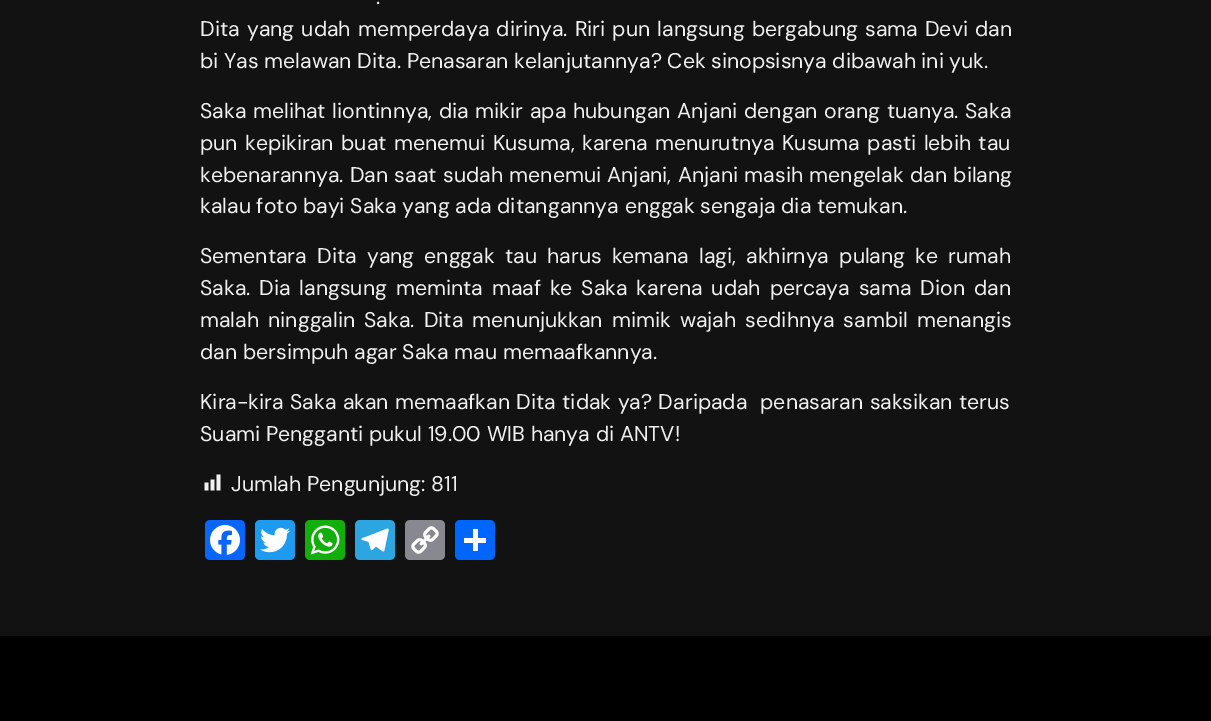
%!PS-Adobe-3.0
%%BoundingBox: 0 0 1211 721
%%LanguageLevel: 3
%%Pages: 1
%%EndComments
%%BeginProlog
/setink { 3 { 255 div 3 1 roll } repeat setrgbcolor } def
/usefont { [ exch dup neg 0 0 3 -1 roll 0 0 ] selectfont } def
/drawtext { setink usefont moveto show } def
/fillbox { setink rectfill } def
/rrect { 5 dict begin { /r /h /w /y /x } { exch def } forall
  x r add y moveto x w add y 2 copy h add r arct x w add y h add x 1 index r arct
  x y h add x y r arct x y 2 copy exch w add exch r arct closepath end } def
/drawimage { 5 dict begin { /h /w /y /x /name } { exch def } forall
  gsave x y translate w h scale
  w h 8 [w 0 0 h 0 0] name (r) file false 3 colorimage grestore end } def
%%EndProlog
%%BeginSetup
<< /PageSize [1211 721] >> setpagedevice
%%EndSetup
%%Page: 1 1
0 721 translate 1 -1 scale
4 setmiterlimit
0 0 1211 721 19 18 18 fillbox
/DMSans-Regular 21.25 usefont
240 240 240 setink
376 4 moveto 2 0 32 (.) widthshow
200 36 moveto 1.5 0 32 (Dita yang udah memperdaya dirinya. Riri pun langsung bergabung sama Devi dan) widthshow
(bi Yas melawan Dita. Penasaran kelanjutannya? Cek sinopsisnya dibawah ini yuk.) 200 68 /DMSans-Regular 21.25 240 240 240 drawtext
200 118 moveto 1 0 32 (Saka melihat liontinnya, dia mikir apa hubungan Anjani dengan orang tuanya. Saka) widthshow
200 150 moveto 1.75 0 32 (pun kepikiran buat menemui Kusuma, karena menurutnya Kusuma pasti lebih tau) widthshow
200 182 moveto 0.75 0 32 (kebenarannya. Dan saat sudah menemui Anjani, Anjani masih mengelak dan bilang) widthshow
(kalau foto bayi Saka yang ada ditangannya enggak sengaja dia temukan.) 200 213 /DMSans-Regular 21.25 240 240 240 drawtext
200 263 moveto 4.5 0 32 (Sementara Dita yang enggak tau harus kemana lagi, akhirnya pulang ke rumah) widthshow
200 295 moveto 3.25 0 32 (Saka. Dia langsung meminta maaf ke Saka karena udah percaya sama Dion dan) widthshow
200 327 moveto 3.5 0 32 (malah ninggalin Saka. Dita menunjukkan mimik wajah sedihnya sambil menangis) widthshow
(dan bersimpuh agar Saka mau memaafkannya.) 200 359 /DMSans-Regular 21.25 240 240 240 drawtext
200 409 moveto 0.75 0 32 (Kira-kira Saka akan memaafkan Dita tidak ya? Daripada  penasaran saksikan terus) widthshow
(Suami Pengganti pukul 19.00 WIB hanya di ANTV!) 200 441 /DMSans-Regular 21.25 240 240 240 drawtext
(assets/img1.rgb) 204 474 17 17 drawimage
(Jumlah Pengunjung: 811) 231 491 /DMSans-Regular 21.25 240 240 240 drawtext
8 102 255 setink
205 520 40 40 5 rrect fill
(assets/img2.rgb) 210 525 30 30 drawimage
29 155 240 setink
255 520 40 40 5 rrect fill
(assets/img3.rgb) 260 527 30 26 drawimage
18 175 10 setink
305 520 40 40 5 rrect fill
(assets/img4.rgb) 310 525 30 30 drawimage
44 165 224 setink
355 520 40 40 5 rrect fill
(assets/img5.rgb) 361 528 28 24 drawimage
136 137 144 setink
405 520 40 40 5 rrect fill
(assets/img6.rgb) 411 526 28 28 drawimage
1 102 255 setink
455 520 40 40 5 rrect fill
473 529 5 22 255 255 255 fillbox
464 538 22 5 255 255 255 fillbox
0 636 1211 85 0 0 0 fillbox
showpage
%%EOF
